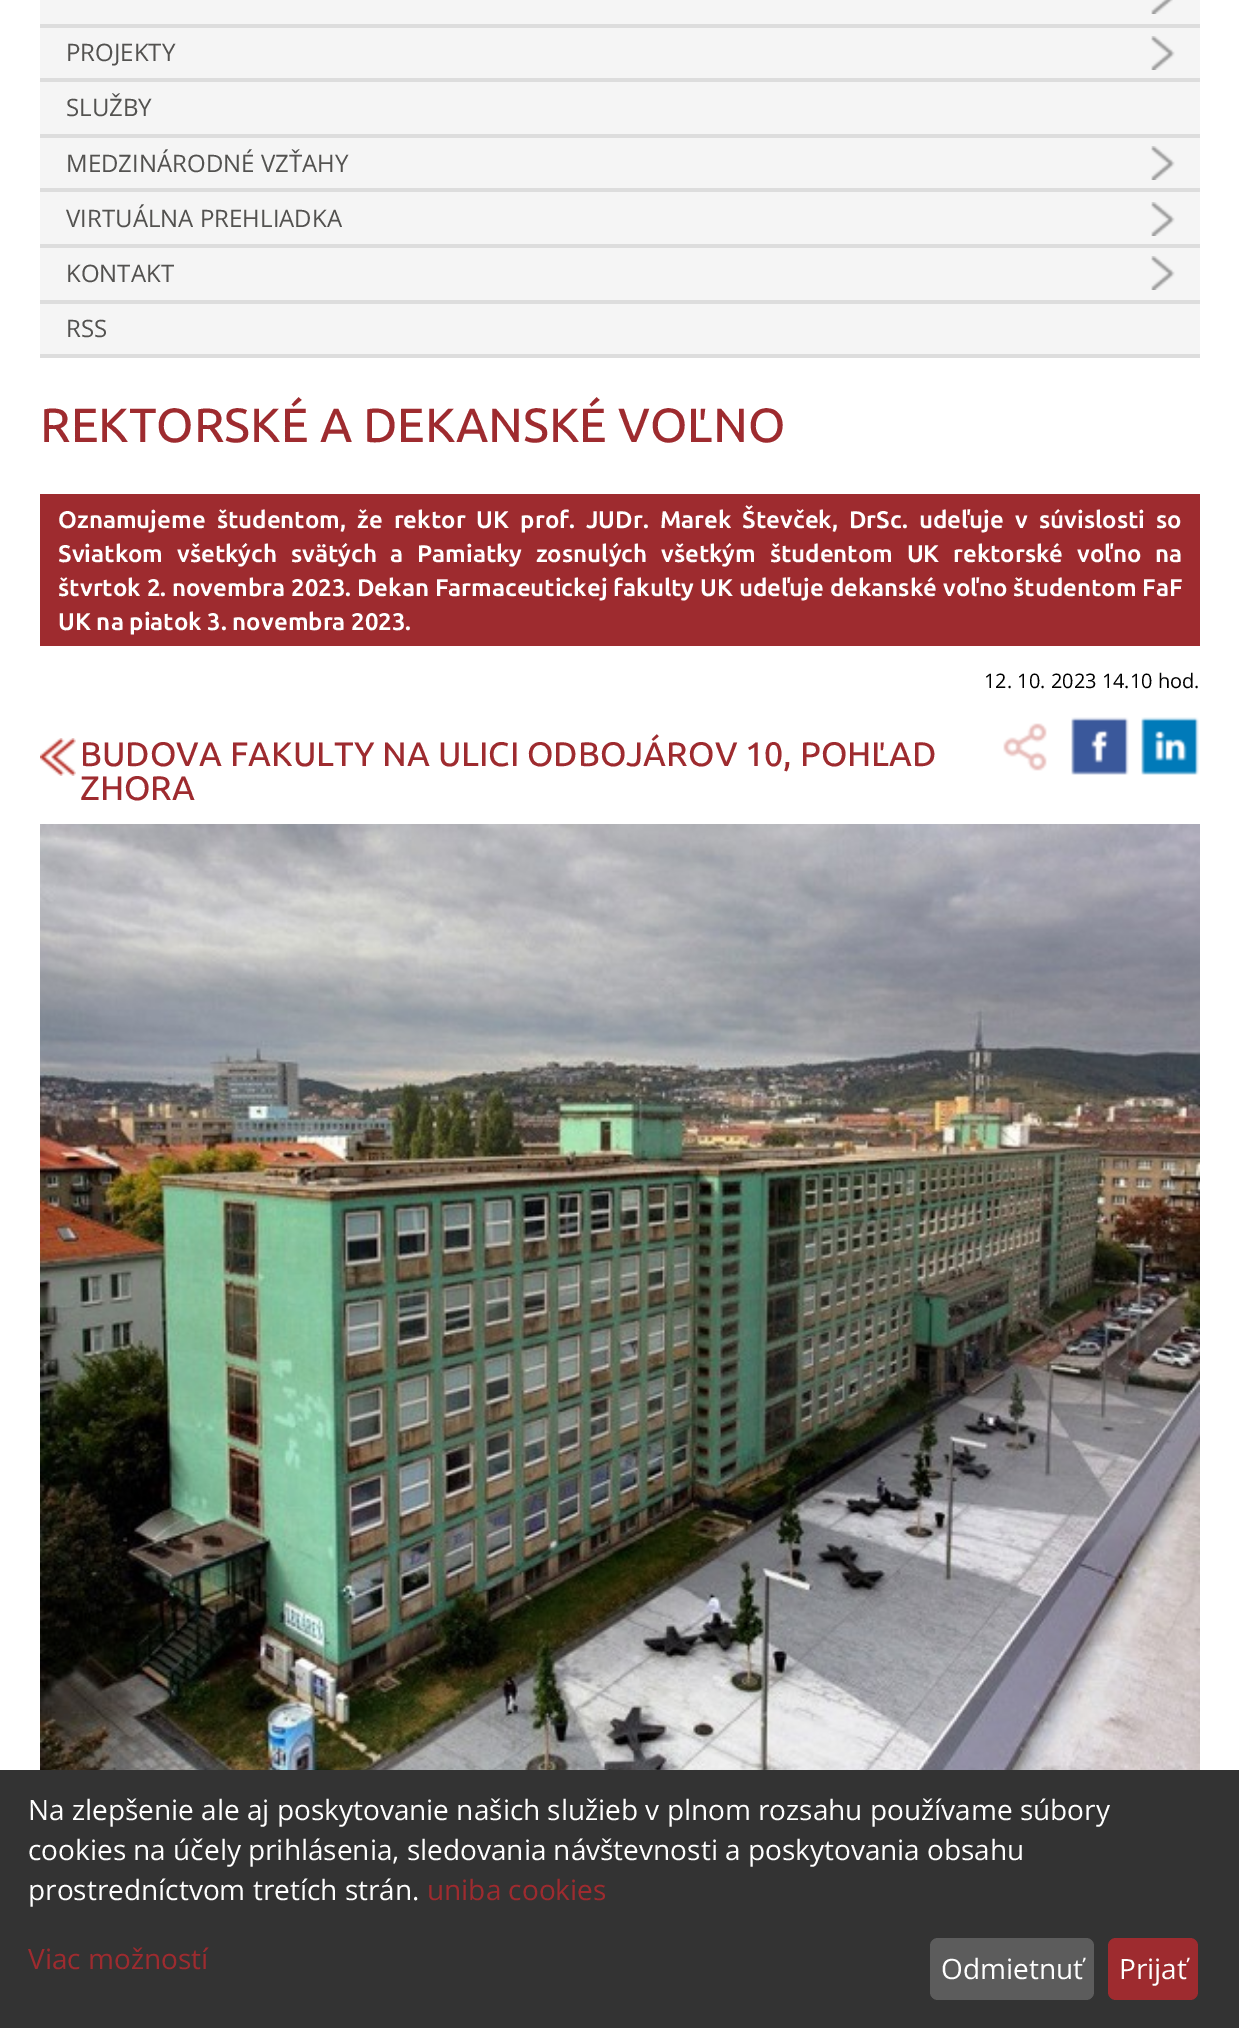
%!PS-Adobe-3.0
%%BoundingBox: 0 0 1239 2028
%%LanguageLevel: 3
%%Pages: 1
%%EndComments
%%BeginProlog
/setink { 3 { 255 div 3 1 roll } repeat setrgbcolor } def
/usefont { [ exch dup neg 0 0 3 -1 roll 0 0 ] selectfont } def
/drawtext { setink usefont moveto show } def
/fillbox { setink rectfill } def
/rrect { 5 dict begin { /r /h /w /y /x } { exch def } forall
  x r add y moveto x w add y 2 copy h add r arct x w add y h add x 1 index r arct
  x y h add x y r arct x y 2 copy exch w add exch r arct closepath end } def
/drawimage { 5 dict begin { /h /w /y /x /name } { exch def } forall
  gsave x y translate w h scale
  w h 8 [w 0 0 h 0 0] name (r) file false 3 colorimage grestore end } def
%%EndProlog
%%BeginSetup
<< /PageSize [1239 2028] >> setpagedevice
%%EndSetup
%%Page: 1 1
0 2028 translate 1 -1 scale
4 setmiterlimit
0 0 1239 2028 255 255 255 fillbox
40 0 1160 354 245 245 245 fillbox
40 24 1160 4 221 221 221 fillbox
(assets/img1.rgb) 1151 0 22 14 drawimage
40 78 1160 4 221 221 221 fillbox
(assets/img2.rgb) 1151 36 24 34 drawimage
(PROJEKTY) 66 61 /OpenSans-Regular 24 83 82 80 drawtext
40 134 1160 4 221 221 221 fillbox
(SLUŽBY) 66 116 /OpenSans-Regular 24 83 82 80 drawtext
40 188 1160 4 221 221 221 fillbox
(assets/img2.rgb) 1151 146 24 34 drawimage
(MEDZINÁRODNÉ VZŤAHY) 66 172 /OpenSans-Regular 24 83 82 80 drawtext
40 244 1160 4 221 221 221 fillbox
(assets/img2.rgb) 1151 202 24 34 drawimage
(VIRTUÁLNA PREHLIADKA) 66 227 /OpenSans-Regular 24 83 82 80 drawtext
40 300 1160 4 221 221 221 fillbox
(assets/img2.rgb) 1151 256 24 34 drawimage
(KONTAKT) 66 282 /OpenSans-Regular 24 83 82 80 drawtext
40 354 1160 4 221 221 221 fillbox
(RSS) 66 337 /OpenSans-Regular 24 83 82 80 drawtext
(REKTORSKÉ A DEKANSKÉ VOĽNO) 40 442 /Ubuntu-Medium 48 158 43 47 drawtext
40 494 1160 152 158 43 47 fillbox
/Ubuntu-Bold 24 usefont
255 255 255 setink
58 528 moveto 5.4 0 32 (Oznamujeme študentom, že rektor UK prof. JUDr. Marek Števček, DrSc. udeľuje v súvislosti so) widthshow
58 562 moveto 7.9 0 32 (Sviatkom všetkých svätých a Pamiatky zosnulých všetkým študentom UK rektorské voľno na) widthshow
58 596 moveto 0.25 0 32 (štvrtok 2. novembra 2023. Dekan Farmaceutickej fakulty UK udeľuje dekanské voľno študentom FaF) widthshow
(UK na piatok 3. novembra 2023.) 58 630 /Ubuntu-Bold 24 255 255 255 drawtext
(12. 10. 2023 14.10 hod.) 984 688 /OpenSans-Regular 20 0 0 0 drawtext
(assets/img3.rgb) 40 738 36 38 drawimage
(assets/img4.rgb) 1003 723 44 48 drawimage
(assets/img5.rgb) 1071 717 58 58 drawimage
(assets/img6.rgb) 1141 717 58 58 drawimage
(BUDOVA FAKULTY NA ULICI ODBOJÁROV 10, POHĽAD) 80 766 /Ubuntu-Medium 34 158 43 47 drawtext
(ZHORA) 80 800 /Ubuntu-Medium 34 158 43 47 drawtext
(assets/img7.rgb) 40 824 1160 946 drawimage
0 1770 1239 258 51 51 51 fillbox
(Na zlepšenie ale aj poskytovanie našich služieb v plnom rozsahu používame súbory) 28 1820 /OpenSans-Regular 28 255 255 255 drawtext
(cookies na účely prihlásenia, sledovania návštevnosti a poskytovania obsahu) 28 1860 /OpenSans-Regular 28 255 255 255 drawtext
(prostredníctvom tretích strán.) 28 1900 /OpenSans-Regular 28 255 255 255 drawtext
(uniba cookies) 427 1900 /OpenSans-Regular 28 158 43 47 drawtext
(Viac možností) 28 1969 /OpenSans-Regular 28 158 43 47 drawtext
92 92 92 setink
930 1938 164 62 8 rrect fill
(Odmietnuť) 941 1979 /OpenSans-Regular 28 255 255 255 drawtext
158 43 47 setink
1108 1938 90 62 8 rrect fill
(Prijať) 1119 1979 /OpenSans-Regular 28 255 255 255 drawtext
showpage
%%EOF
